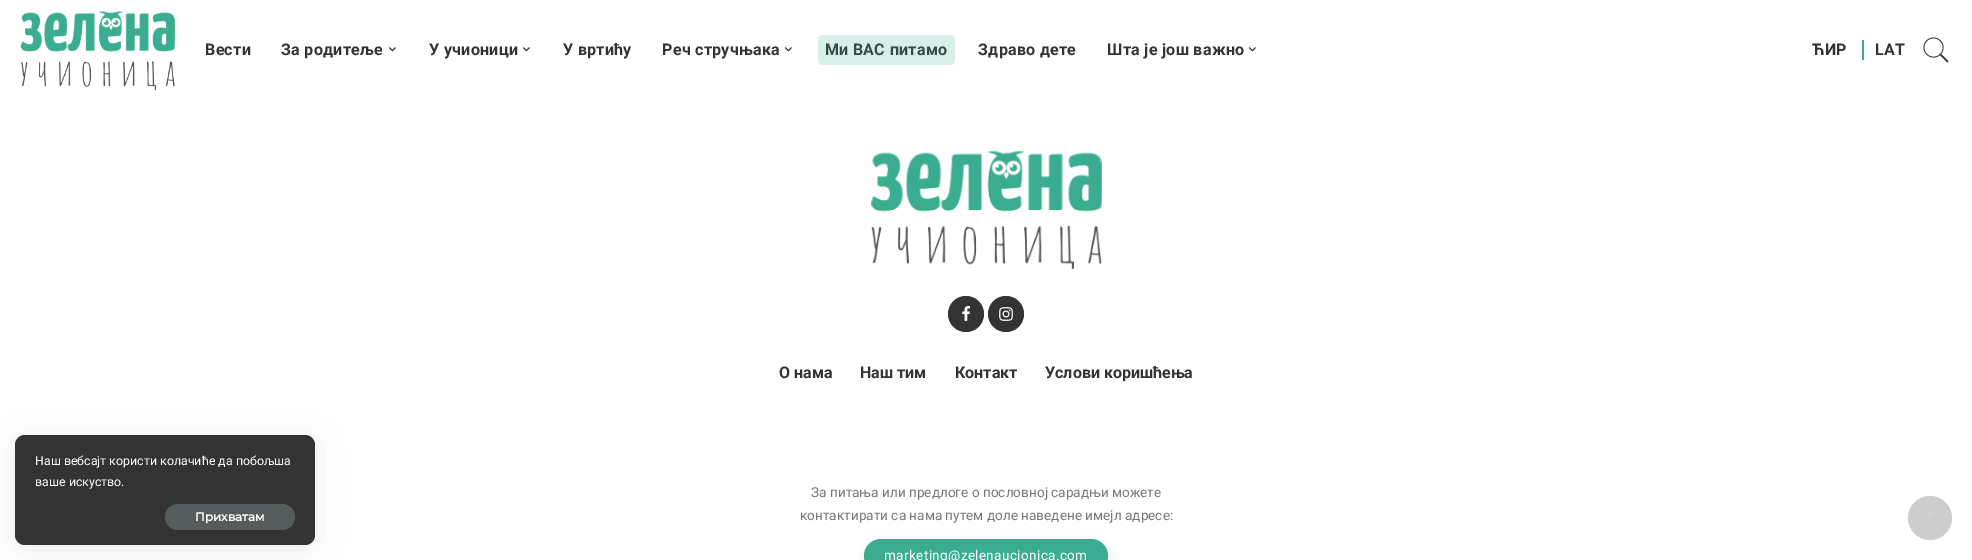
%!PS-Adobe-3.0
%%BoundingBox: 0 0 1972 560
%%LanguageLevel: 3
%%Pages: 1
%%EndComments
%%BeginProlog
/setink { 3 { 255 div 3 1 roll } repeat setrgbcolor } def
/usefont { [ exch dup neg 0 0 3 -1 roll 0 0 ] selectfont } def
/drawtext { setink usefont moveto show } def
/fillbox { setink rectfill } def
/setalpha { dup .setfillconstantalpha .setstrokeconstantalpha } def
/disc { newpath 0 360 arc closepath } def
/rrect { 5 dict begin { /r /h /w /y /x } { exch def } forall
  x r add y moveto x w add y 2 copy h add r arct x w add y h add x 1 index r arct
  x y h add x y r arct x y 2 copy exch w add exch r arct closepath end } def
/softshadow { 12 dict begin { /a /b /q /h /w /y /x } { exch def } forall gsave /was 0 def
  9 -2 -9 { dup b mul 4 div /e exch def 1 sub .425 mul 2.718 exch exp 1 add a .99 .min exch div /now exch def
    1 1 now sub 1 was sub div sub setalpha /was now def
    w h .min e 2 mul add 0 gt { x e sub y e sub w e 2 mul add h e 2 mul add
      q e add b .6 mul add w h .min 2 div e add .min 0 .max rrect fill } if } for grestore end } def
/drawimage { 5 dict begin { /h /w /y /x /name } { exch def } forall
  gsave x y translate w h scale
  w h 8 [w 0 0 h 0 0] name (r) file false 3 colorimage grestore end } def
%%EndProlog
%%BeginSetup
<< /PageSize [1972 560] /PageUsesTransparency true >> setpagedevice
%%EndSetup
%%Page: 1 1
0 .pushpdf14devicefilter
0 560 translate 1 -1 scale
4 setmiterlimit
0 0 1972 560 255 255 255 fillbox
0 0 0 setink
15 439 300 110 10 15 0.07 softshadow
51 51 51 setink
15 435 300 110 10 rrect fill
(Наш вебсајт користи колачиће да побољша) 35 465 /Roboto-Regular 12.4 255 255 255 drawtext
(ваше искуство.) 35 486 /Roboto-Regular 12.4 255 255 255 drawtext
86 92 92 setink
165 504 130 26 13 rrect fill
(Прихватам) 195 521 /Montserrat-Bold 12 255 255 255 drawtext
(assets/img1.rgb) 20 11 155 79 drawimage
/Roboto-Bold 16 usefont
51 51 51 setink
205 55 moveto 0.3 0 (Вести) ashow
281 55 moveto 0.3 0 (За родитеље) ashow
(assets/img2.rgb) 388 47 8 5 drawimage
429 55 moveto 0.3 0 (У учионици) ashow
(assets/img2.rgb) 522 47 8 5 drawimage
563 55 moveto 0.3 0 (У вртићу) ashow
662 55 moveto 0.3 0 (Реч стручњака) ashow
(assets/img2.rgb) 784 47 8 5 drawimage
825 55 moveto 0.3 0 (Ми ВАС питамо) ashow
0.2 setalpha
58 172 144 setink
818 35 137 30 5 rrect fill
1 setalpha
51 51 51 setink
978 55 moveto 0.3 0 (Здраво дете) ashow
1107 55 moveto 0.3 0 (Шта је још важно) ashow
(assets/img2.rgb) 1248 47 8 5 drawimage
1812 55 moveto 0.3 0 (ЋИР) ashow
1862 40 2 20 58 172 144 fillbox
51 51 51 setink
1875 55 moveto 0.3 0 (LAT) ashow
(assets/img3.rgb) 1923 37 26 26 drawimage
(assets/img4.rgb) 871 150 231 119 drawimage
966 314 18 disc fill
(assets/img5.rgb) 962 306 8 15 drawimage
1006 314 18 disc fill
(assets/img6.rgb) 999 307 14 14 drawimage
(О нама) 779 378 /Roboto-Bold 16 51 51 51 drawtext
(Наш тим) 860 378 /Roboto-Bold 16 51 51 51 drawtext
(Контакт) 955 378 /Roboto-Bold 16 51 51 51 drawtext
(Услови коришћења) 1045 378 /Roboto-Bold 16 51 51 51 drawtext
(За питања или предлоге о пословној сарадњи можете) 811 497 /Roboto-Regular 13.6 119 119 119 drawtext
(контактирати са нама путем доле наведене имејл адресе:) 800 520 /Roboto-Regular 13.6 119 119 119 drawtext
0 0 0 setink
865 544 244 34 17 5 0.1 softshadow
58 172 144 setink
864 539 244 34 17 rrect fill
255 255 255 setink
884 560 moveto 0.35 0 (marketing@zelenaucionica.com) ashow
205 205 205 setink
1930 518 22 disc fill
(assets/img7.rgb) 1925 511 9 13 drawimage
.poppdf14devicefilter showpage
%%EOF
